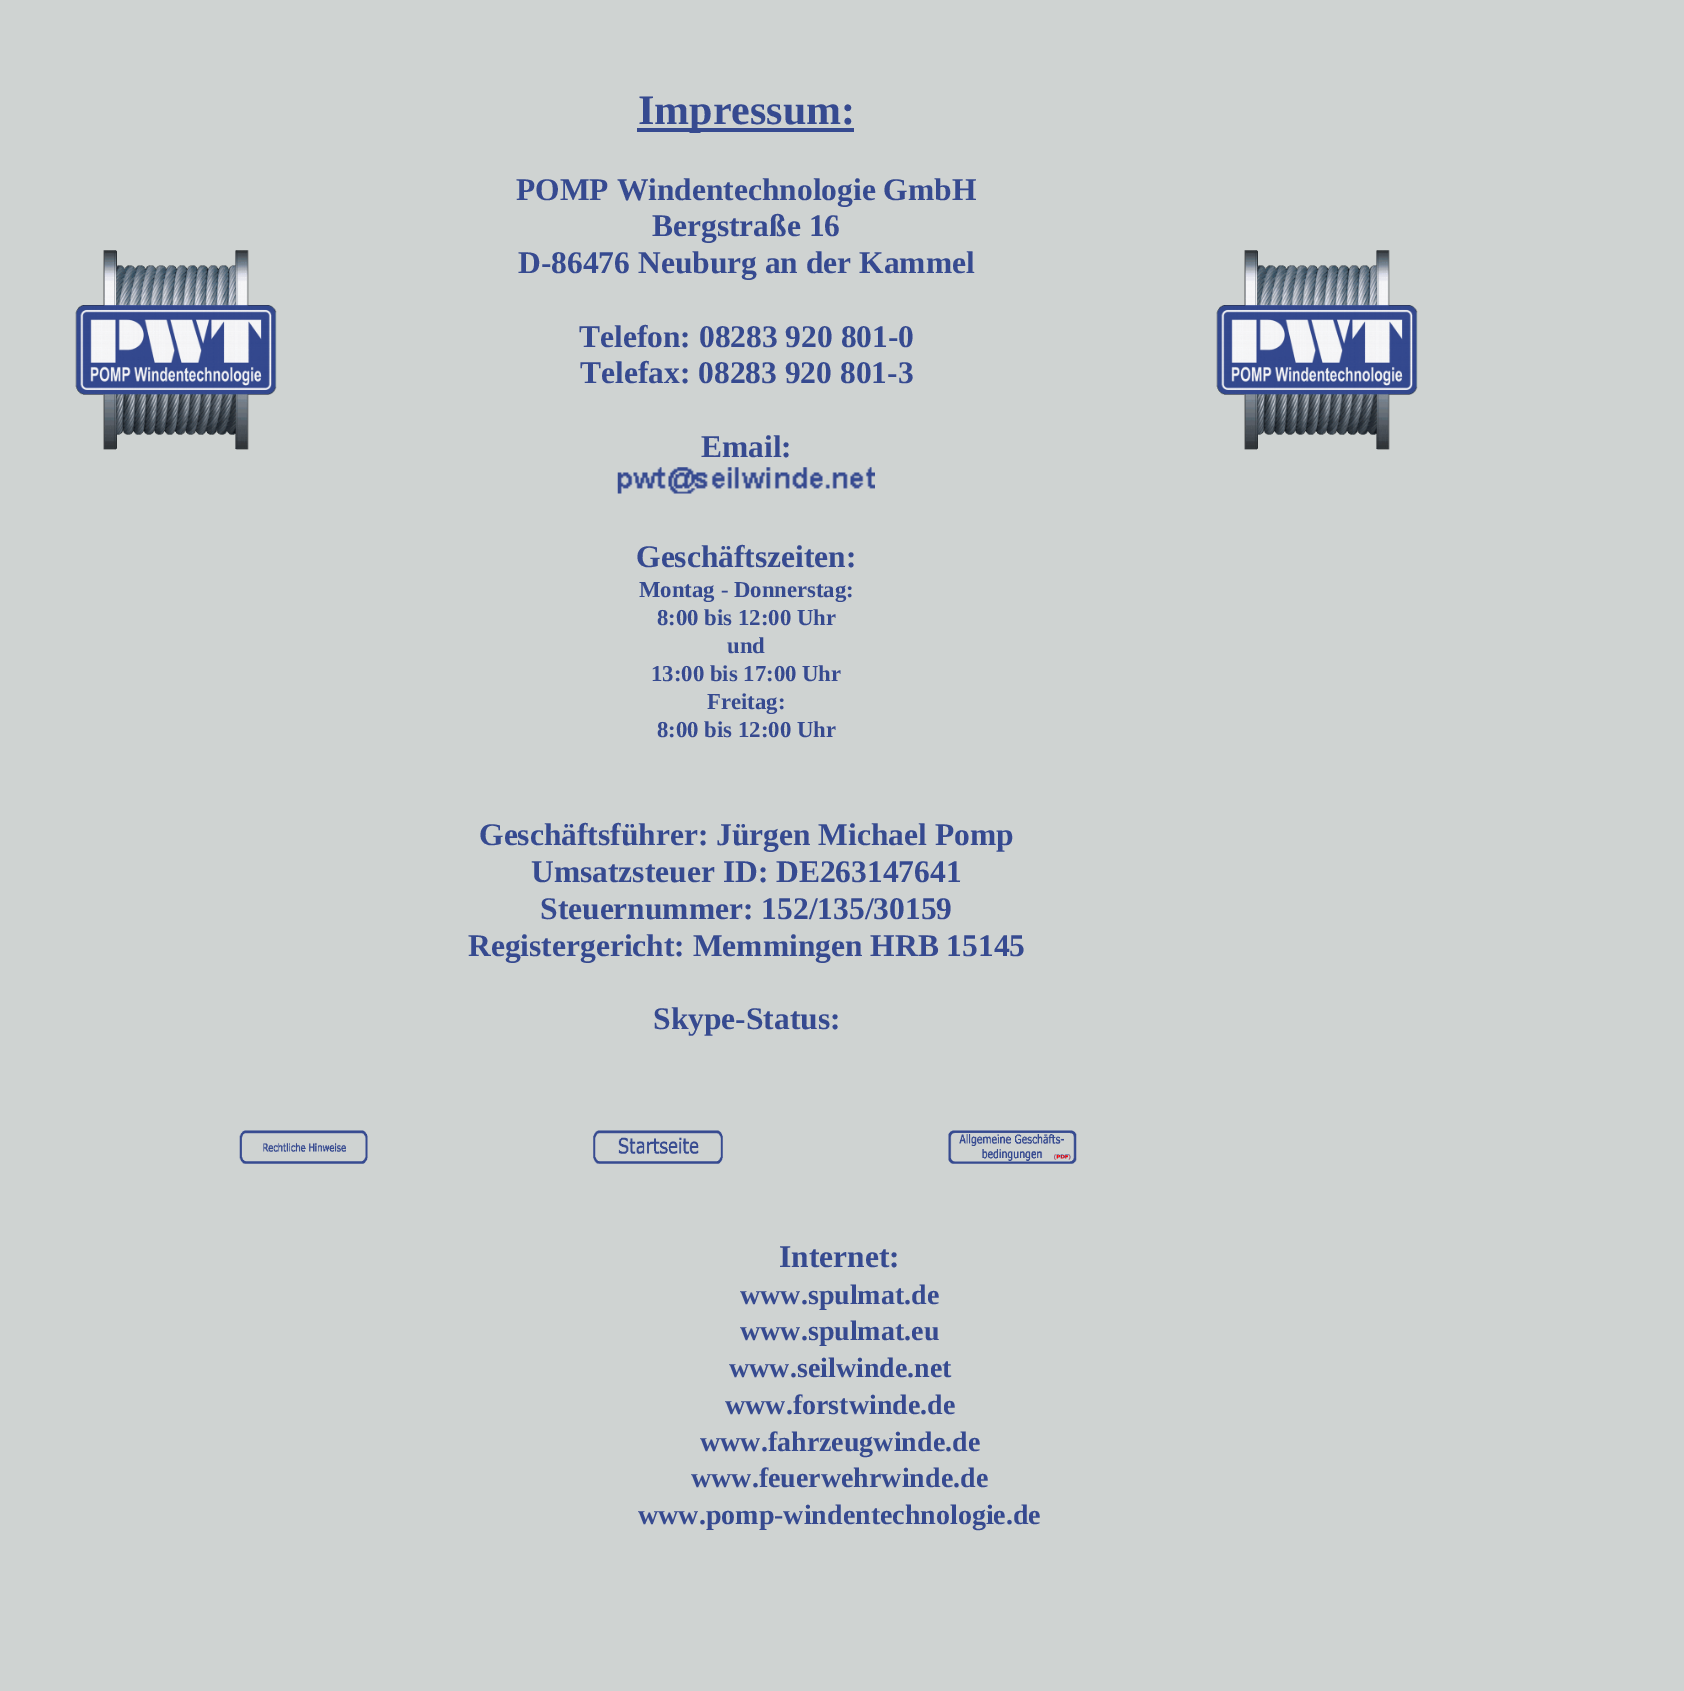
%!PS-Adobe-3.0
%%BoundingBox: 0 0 1684 1691
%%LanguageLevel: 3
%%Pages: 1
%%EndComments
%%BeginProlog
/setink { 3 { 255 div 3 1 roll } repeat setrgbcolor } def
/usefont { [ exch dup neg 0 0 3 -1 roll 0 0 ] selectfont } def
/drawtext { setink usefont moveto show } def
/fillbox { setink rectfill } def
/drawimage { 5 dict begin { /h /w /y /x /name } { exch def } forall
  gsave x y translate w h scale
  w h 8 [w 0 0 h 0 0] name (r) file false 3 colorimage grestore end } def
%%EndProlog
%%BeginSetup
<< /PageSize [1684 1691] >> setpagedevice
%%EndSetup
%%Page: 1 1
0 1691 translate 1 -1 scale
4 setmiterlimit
0 0 1684 1691 207 211 210 fillbox
(assets/img1.rgb) 75 250 202 200 drawimage
637 128 217 4 54 74 144 fillbox
(Impressum:) 638 124 /LiberationSerif-Bold 42 54 74 144 drawtext
(POMP Windentechnologie GmbH) 516 200 /LiberationSerif-Bold 31.5 54 74 144 drawtext
(Bergstraße 16) 652 236 /LiberationSerif-Bold 31.5 54 74 144 drawtext
(D-86476 Neuburg an der Kammel) 518 273 /LiberationSerif-Bold 31.5 54 74 144 drawtext
(Telefon: 08283 920 801-0) 579 347 /LiberationSerif-Bold 31.5 54 74 144 drawtext
(Telefax: 08283 920 801-3) 580 383 /LiberationSerif-Bold 31.5 54 74 144 drawtext
(Email:) 701 457 /LiberationSerif-Bold 31.5 54 74 144 drawtext
(assets/img2.rgb) 617 467 258 27 drawimage
(Geschäftszeiten:) 636 567 /LiberationSerif-Bold 31.5 54 74 144 drawtext
(Montag - Donnerstag:) 639 597 /LiberationSerif-Bold 22.75 54 74 144 drawtext
(8:00 bis 12:00 Uhr) 657 625 /LiberationSerif-Bold 22.75 54 74 144 drawtext
(und) 727 653 /LiberationSerif-Bold 22.75 54 74 144 drawtext
(13:00 bis 17:00 Uhr) 651 681 /LiberationSerif-Bold 22.75 54 74 144 drawtext
(Freitag:) 707 709 /LiberationSerif-Bold 22.75 54 74 144 drawtext
(8:00 bis 12:00 Uhr) 657 737 /LiberationSerif-Bold 22.75 54 74 144 drawtext
(Geschäftsführer: Jürgen Michael Pomp) 479 845 /LiberationSerif-Bold 31.5 54 74 144 drawtext
(Umsatzsteuer ID: DE263147641) 531 882 /LiberationSerif-Bold 31.5 54 74 144 drawtext
(Steuernummer: 152/135/30159) 540 919 /LiberationSerif-Bold 31.5 54 74 144 drawtext
(Registergericht: Memmingen HRB 15145) 468 956 /LiberationSerif-Bold 31.5 54 74 144 drawtext
(Skype-Status:) 653 1029 /LiberationSerif-Bold 31.5 54 74 144 drawtext
(assets/img1.rgb) 1216 250 202 200 drawimage
(assets/img3.rgb) 239 1130 129 34 drawimage
(assets/img4.rgb) 593 1130 130 34 drawimage
(assets/img5.rgb) 948 1130 129 34 drawimage
(Internet:) 779 1267 /LiberationSerif-Bold 31.5 54 74 144 drawtext
(www.spulmat.de) 740 1304 /LiberationSerif-Bold 28 54 74 144 drawtext
(www.spulmat.eu) 740 1340 /LiberationSerif-Bold 28 54 74 144 drawtext
(www.seilwinde.net) 729 1377 /LiberationSerif-Bold 28 54 74 144 drawtext
(www.forstwinde.de) 725 1414 /LiberationSerif-Bold 28 54 74 144 drawtext
(www.fahrzeugwinde.de) 700 1451 /LiberationSerif-Bold 28 54 74 144 drawtext
(www.feuerwehrwinde.de) 691 1487 /LiberationSerif-Bold 28 54 74 144 drawtext
(www.pomp-windentechnologie.de) 638 1524 /LiberationSerif-Bold 28 54 74 144 drawtext
showpage
%%EOF
